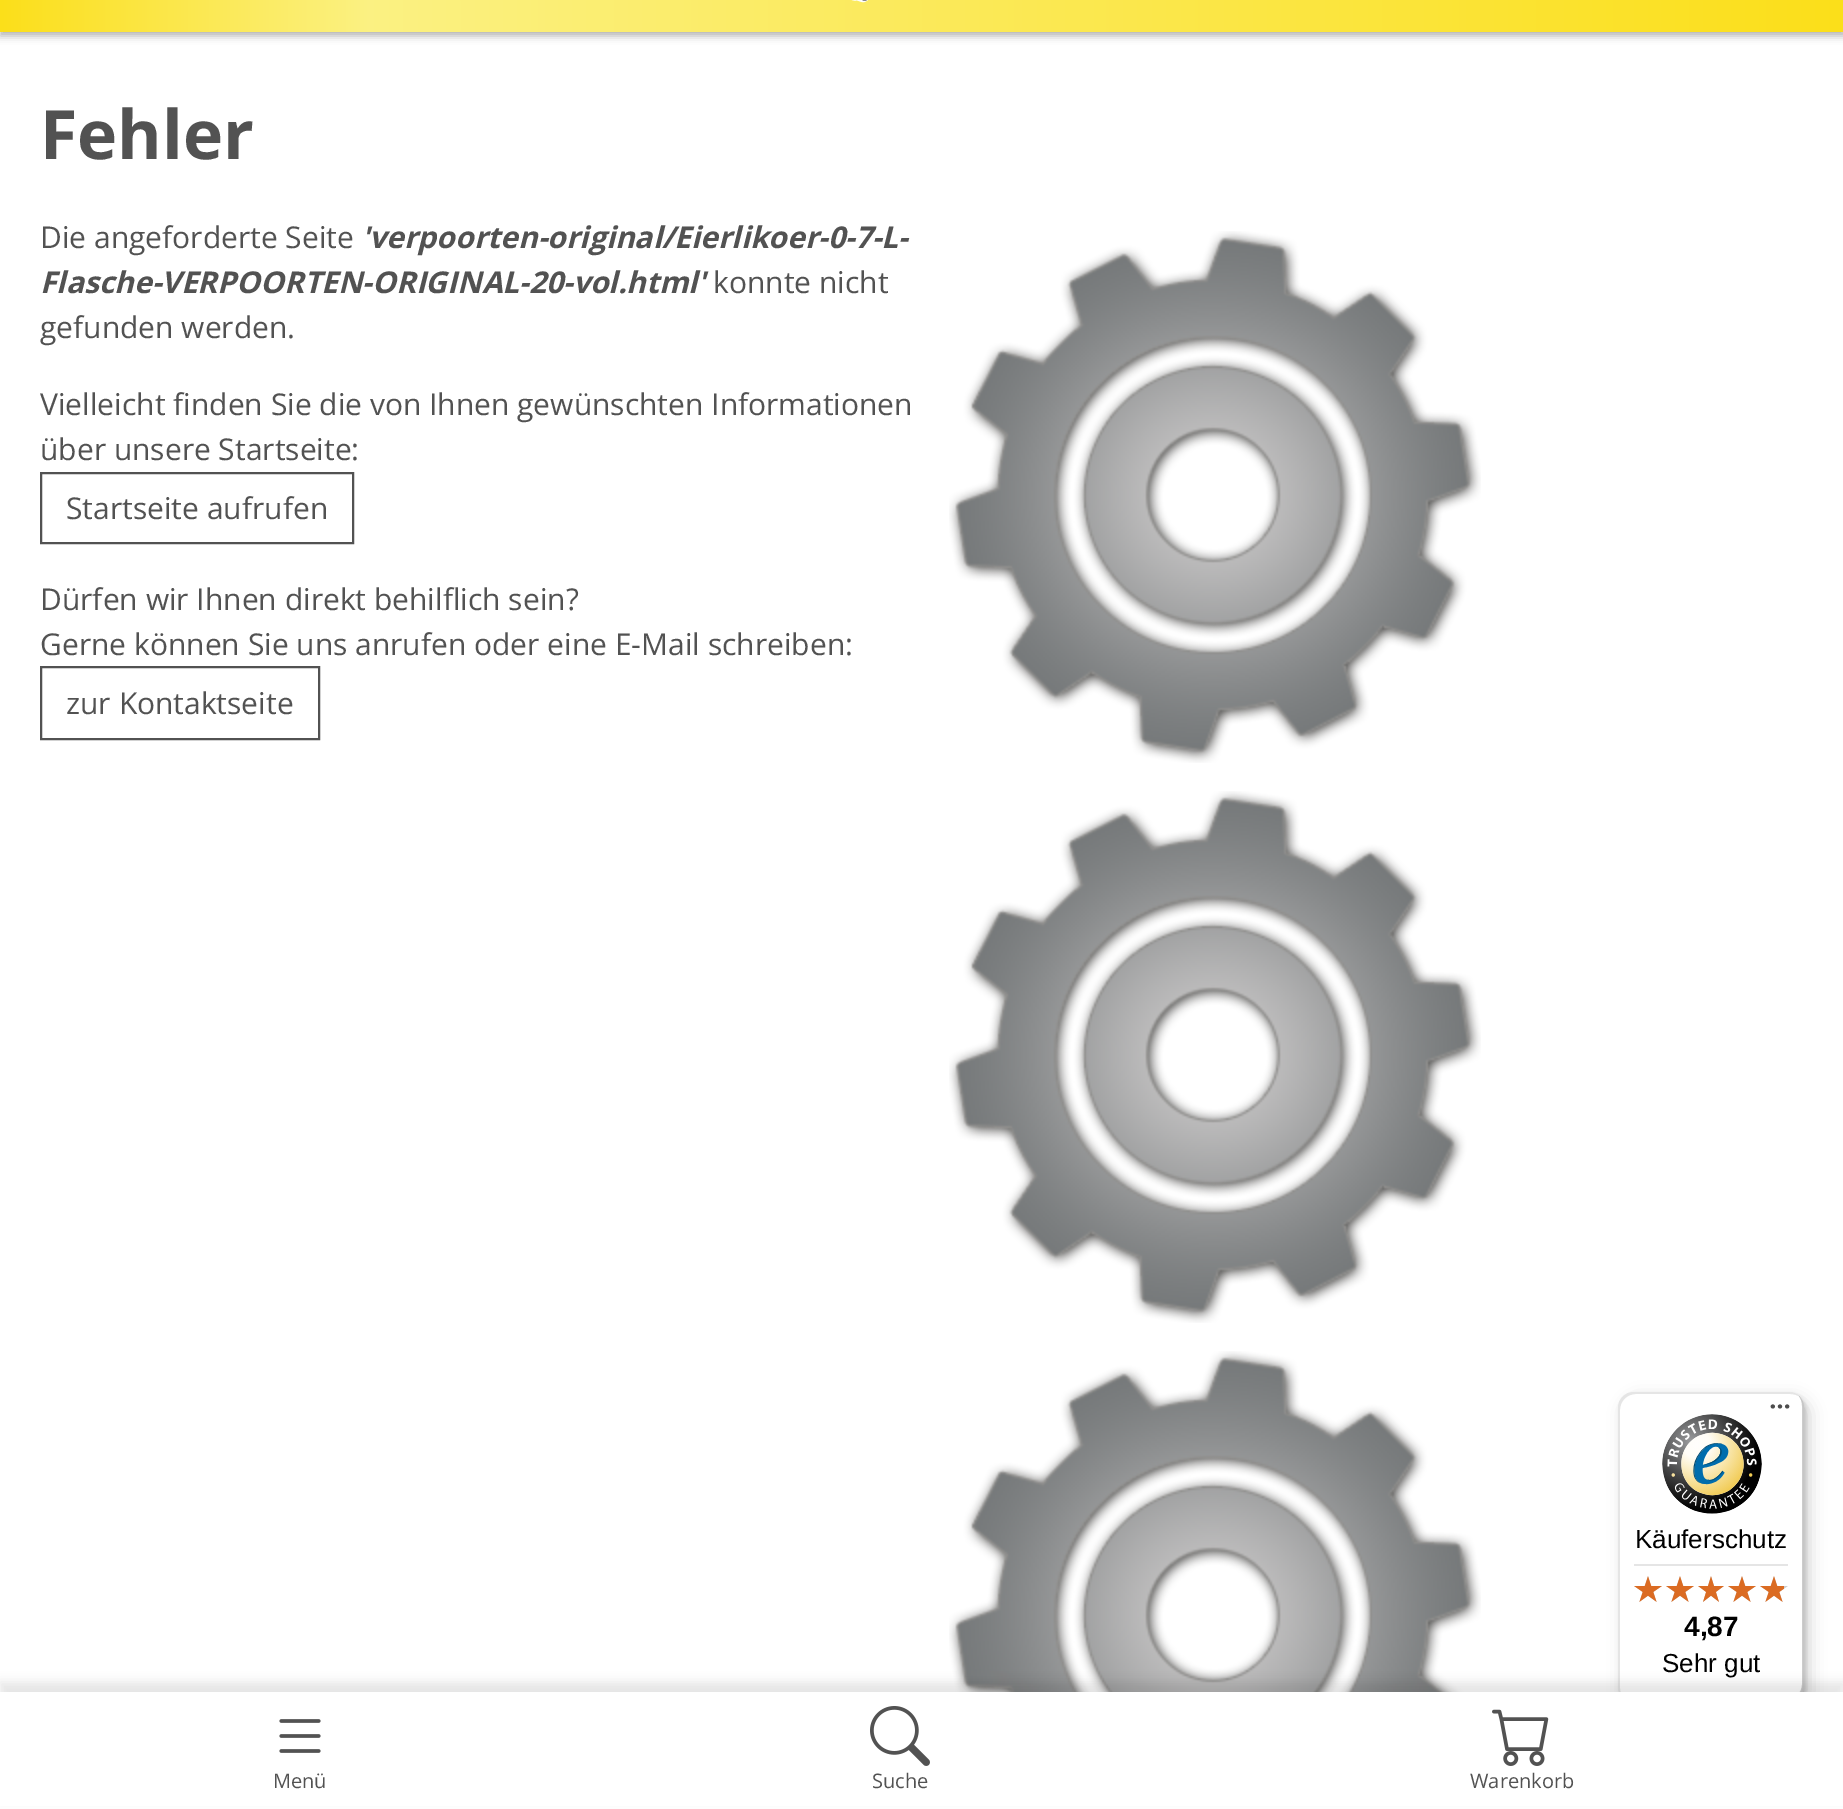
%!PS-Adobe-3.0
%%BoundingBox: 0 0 1843 1809
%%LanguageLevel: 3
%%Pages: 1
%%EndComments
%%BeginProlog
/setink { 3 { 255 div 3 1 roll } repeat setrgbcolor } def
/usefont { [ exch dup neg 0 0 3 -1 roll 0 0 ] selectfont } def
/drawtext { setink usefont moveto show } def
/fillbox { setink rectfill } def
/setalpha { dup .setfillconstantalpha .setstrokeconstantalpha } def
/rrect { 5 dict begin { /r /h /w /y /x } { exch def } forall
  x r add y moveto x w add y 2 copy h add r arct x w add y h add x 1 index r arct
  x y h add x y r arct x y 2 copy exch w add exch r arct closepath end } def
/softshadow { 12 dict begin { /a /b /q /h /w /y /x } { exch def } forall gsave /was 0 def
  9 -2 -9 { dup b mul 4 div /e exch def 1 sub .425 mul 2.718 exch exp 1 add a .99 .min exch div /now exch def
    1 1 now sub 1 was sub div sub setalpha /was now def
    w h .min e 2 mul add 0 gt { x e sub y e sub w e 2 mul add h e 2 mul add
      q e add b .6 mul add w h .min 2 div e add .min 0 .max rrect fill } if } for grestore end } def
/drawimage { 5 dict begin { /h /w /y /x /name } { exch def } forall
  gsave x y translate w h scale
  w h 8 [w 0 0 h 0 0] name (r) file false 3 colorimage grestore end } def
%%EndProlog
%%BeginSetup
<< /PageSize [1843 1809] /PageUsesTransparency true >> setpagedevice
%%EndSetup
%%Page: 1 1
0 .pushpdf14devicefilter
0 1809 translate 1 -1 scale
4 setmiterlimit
0 0 1843 1809 255 255 255 fillbox
(Fehler) 40 159 /OpenSans-Bold 68 82 82 82 drawtext
(Die angeforderte Seite) 40 248 /OpenSans-Regular 30 82 82 82 drawtext
('verpoorten-original/Eierlikoer-0-7-L-) 361 248 /OpenSans-BoldItalic 30 82 82 82 drawtext
(Flasche-VERPOORTEN-ORIGINAL-20-vol.html') 40 293 /OpenSans-BoldItalic 30 82 82 82 drawtext
(konnte nicht) 713 293 /OpenSans-Regular 30 82 82 82 drawtext
(gefunden werden.) 40 338 /OpenSans-Regular 30 82 82 82 drawtext
(Vielleicht finden Sie die von Ihnen gewünschten Informationen) 40 415 /OpenSans-Regular 30 82 82 82 drawtext
(über unsere Startseite:) 40 460 /OpenSans-Regular 30 82 82 82 drawtext
2 setlinewidth
41 473 312 70 rectstroke
(Startseite aufrufen) 66 519 /OpenSans-Regular 30 82 82 82 drawtext
(Dürfen wir Ihnen direkt behilflich sein?) 40 610 /OpenSans-Regular 30 82 82 82 drawtext
(Gerne können Sie uns anrufen oder eine E-Mail schreiben:) 40 655 /OpenSans-Regular 30 82 82 82 drawtext
41 667 278 72 rectstroke
(zur Kontaktseite) 66 714 /OpenSans-Regular 30 82 82 82 drawtext
(assets/img1.rgb) 949 231 532 532 drawimage
(assets/img1.rgb) 949 791 532 532 drawimage
(assets/img2.rgb) 949 1351 532 341 drawimage
0 0 0 setink
1624 1398 186 310 16 8 0.15 softshadow
1620 1394 186 310 16 2 0.15 softshadow
255 255 255 setink
1618 1392 186 310 16 rrect fill
0.1 setalpha
0 0 0 setink
1636 1394 moveto 1790 1394 lineto 1794 1394 1797 1395 1800 1397 curveto 1797 1394 1793 1392 1788 1392 curveto 1634 1392 lineto 1625 1392 1618 1399 1618 1408 curveto 1618 1686 lineto 1618 1691 1620 1695 1623 1698 curveto 1621 1695 1620 1692 1620 1688 curveto 1620 1410 lineto 1620 1401 1627 1394 1636 1394 curveto closepath fill
0.2 setalpha
1622 1697 moveto 1625 1700 1629 1702 1634 1702 curveto 1788 1702 lineto 1797 1702 1804 1695 1804 1686 curveto 1804 1408 lineto 1804 1403 1802 1399 1799 1396 curveto 1801 1399 1802 1402 1802 1406 curveto 1802 1684 lineto 1802 1693 1795 1700 1786 1700 curveto 1632 1700 lineto 1628 1700 1625 1699 1622 1697 curveto closepath fill
50 50 50 setink
1623 1697 moveto 1626 1700 1630 1702 1634 1702 curveto 1788 1702 lineto 1797 1702 1804 1695 1804 1686 curveto 1804 1408 lineto 1804 1404 1802 1400 1799 1397 curveto 1802 1400 1803 1403 1803 1407 curveto 1803 1685 lineto 1803 1694 1796 1701 1787 1701 curveto 1633 1701 lineto 1629 1701 1626 1700 1623 1697 curveto closepath fill
0.3 setalpha
255 255 255 setink
1623 1697 moveto 1626 1700 1630 1702 1634 1702 curveto 1788 1702 lineto 1797 1702 1804 1695 1804 1686 curveto 1804 1408 lineto 1804 1404 1802 1400 1799 1397 curveto 1802 1400 1803 1403 1803 1407 curveto 1803 1685 lineto 1803 1694 1796 1701 1787 1701 curveto 1633 1701 lineto 1629 1701 1626 1700 1623 1697 curveto closepath fill
1 setalpha
(assets/img3.rgb) 1770 1404 20 5 drawimage
(assets/img4.rgb) 1662 1414 100 100 drawimage
(Käuferschutz) 1635 1548 /LiberationSans-Regular 26 0 0 0 drawtext
1634 1564 154 2 229 229 229 fillbox
(assets/img5.rgb) 1634 1576 28 26 drawimage
(assets/img5.rgb) 1666 1576 28 26 drawimage
(assets/img6.rgb) 1698 1576 26 26 drawimage
(assets/img5.rgb) 1728 1576 28 26 drawimage
(assets/img5.rgb) 1760 1576 28 26 drawimage
(assets/img7.rgb) 1634 1576 28 26 drawimage
(assets/img7.rgb) 1666 1576 28 26 drawimage
(assets/img8.rgb) 1698 1576 26 26 drawimage
(assets/img7.rgb) 1728 1576 28 26 drawimage
(assets/img9.rgb) 1760 1576 24 26 drawimage
(4,87) 1684 1636 /LiberationSans-Bold 28 0 0 0 drawtext
(Sehr gut) 1662 1672 /LiberationSans-Regular 26 0 0 0 drawtext
0 -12 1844 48 0 4 0.3 softshadow
gsave 0 0 moveto 1843 0 lineto 1843 32 lineto 0 32 lineto closepath clip newpath
<< /ShadingType 2 /ColorSpace /DeviceRGB /Coords [0 -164 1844 -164] /Extend [true true] /Function << /FunctionType 3 /Domain [0 1] /Functions [<< /FunctionType 2 /Domain [0 1] /C0 [0.984 0.875 0.102] /C1 [0.984 0.945 0.51] /N 1 >> << /FunctionType 2 /Domain [0 1] /C0 [0.984 0.945 0.51] /C1 [0.984 0.875 0.102] /N 1 >>] /Bounds [0.2] /Encode [0 1 0 1] >> >> shfill grestore
(assets/img10.rgb) 851 0 17 3 drawimage
0 1682 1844 118 0 5 0.1 softshadow
0 1692 1843 114 255 255 255 fillbox
(assets/img11.rgb) 279 1719 42 34 drawimage
(Menü) 273 1788 /OpenSans-Regular 20 82 82 82 drawtext
(assets/img12.rgb) 870 1706 60 60 drawimage
(Suche) 872 1788 /OpenSans-Regular 20 82 82 82 drawtext
(assets/img13.rgb) 1492 1709 57 57 drawimage
(Warenkorb) 1470 1788 /OpenSans-Regular 20 82 82 82 drawtext
.poppdf14devicefilter showpage
%%EOF
